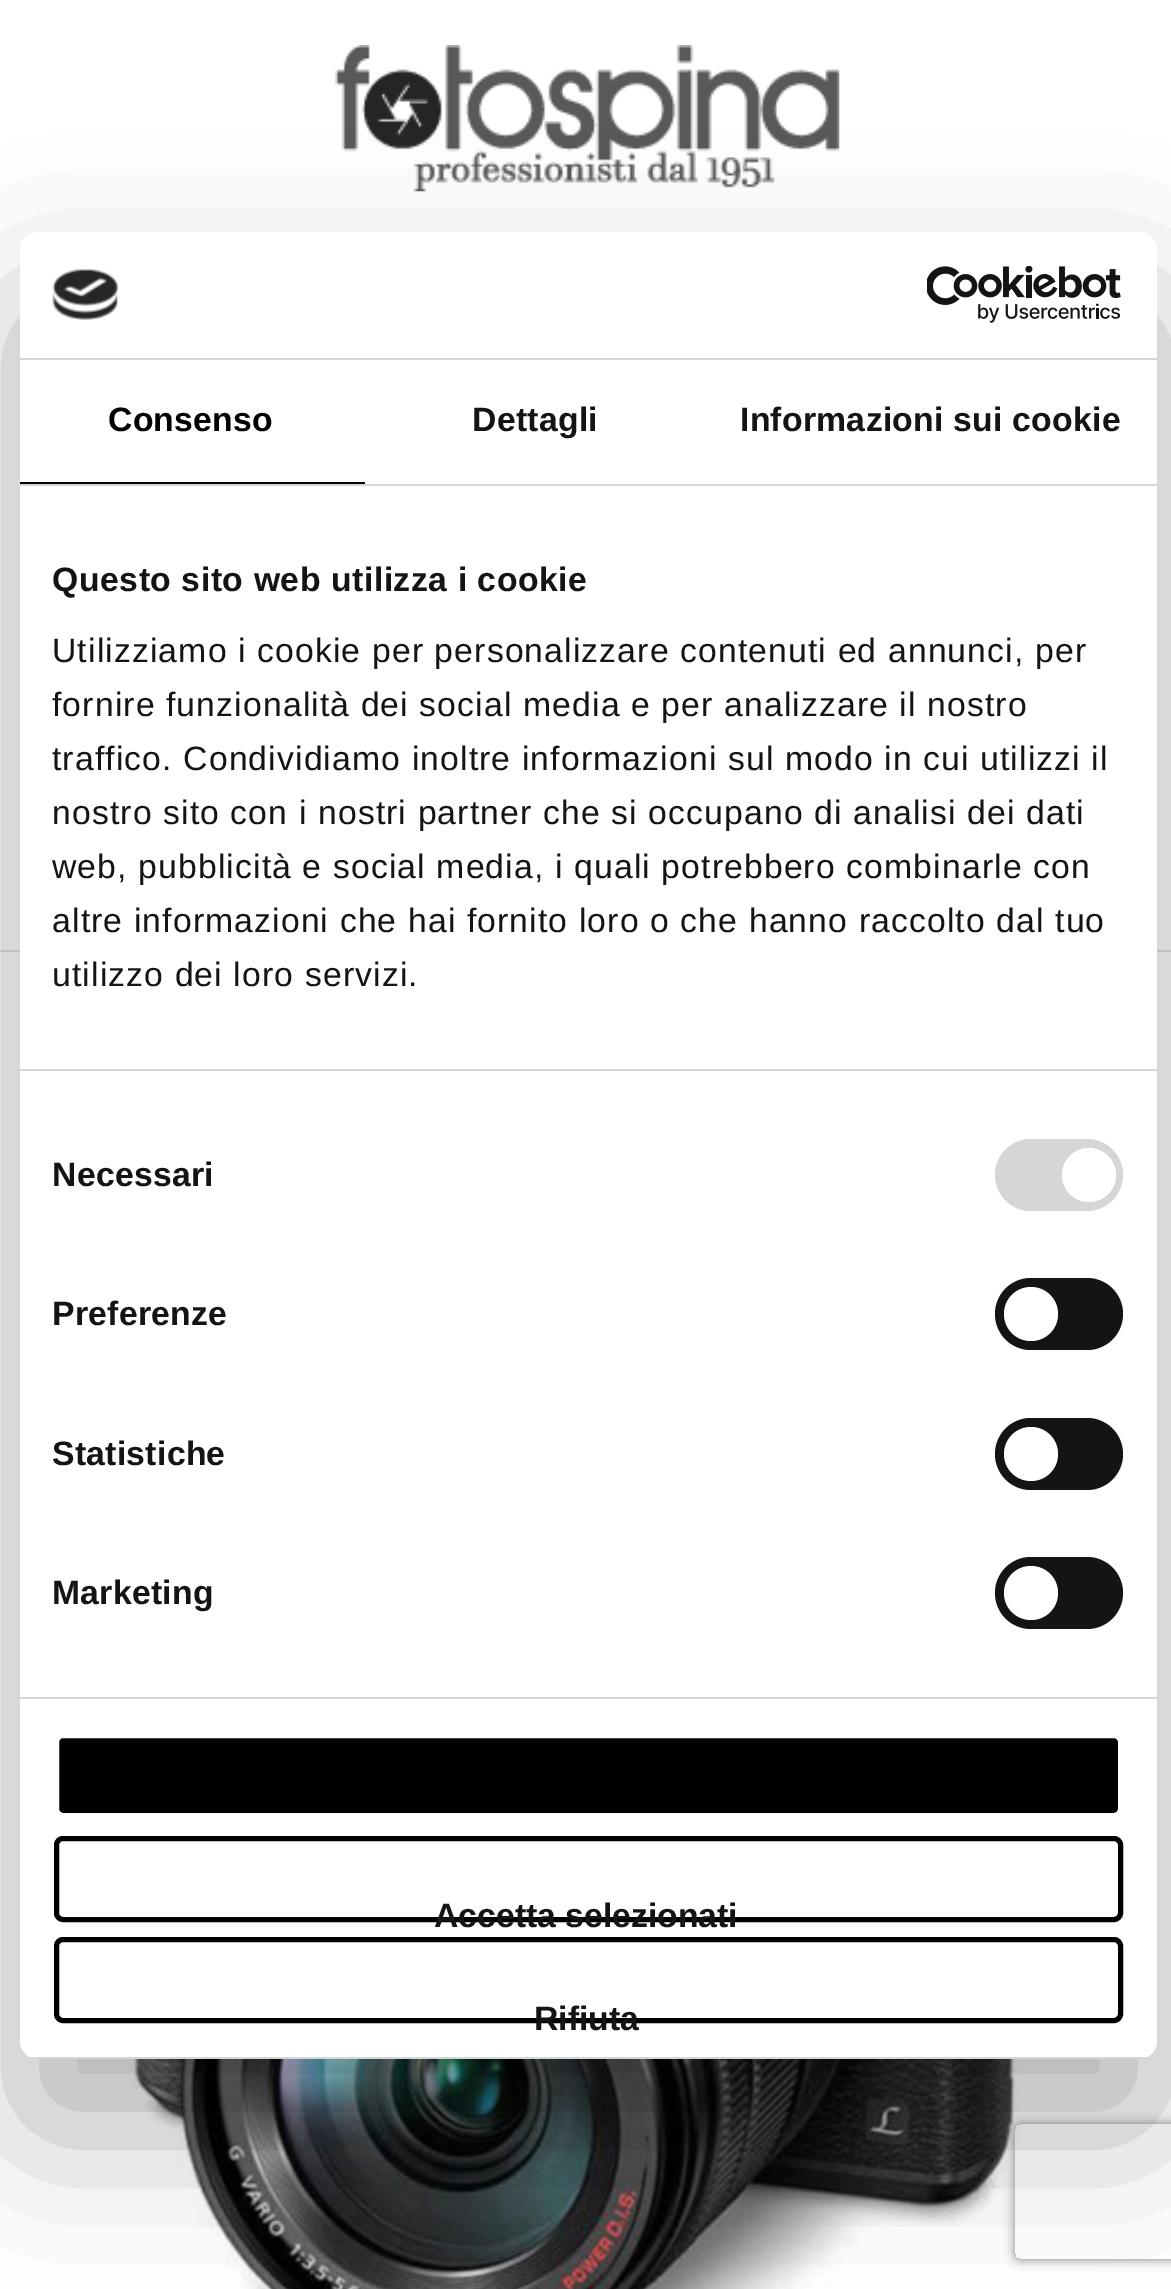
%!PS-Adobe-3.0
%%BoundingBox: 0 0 1171 2289
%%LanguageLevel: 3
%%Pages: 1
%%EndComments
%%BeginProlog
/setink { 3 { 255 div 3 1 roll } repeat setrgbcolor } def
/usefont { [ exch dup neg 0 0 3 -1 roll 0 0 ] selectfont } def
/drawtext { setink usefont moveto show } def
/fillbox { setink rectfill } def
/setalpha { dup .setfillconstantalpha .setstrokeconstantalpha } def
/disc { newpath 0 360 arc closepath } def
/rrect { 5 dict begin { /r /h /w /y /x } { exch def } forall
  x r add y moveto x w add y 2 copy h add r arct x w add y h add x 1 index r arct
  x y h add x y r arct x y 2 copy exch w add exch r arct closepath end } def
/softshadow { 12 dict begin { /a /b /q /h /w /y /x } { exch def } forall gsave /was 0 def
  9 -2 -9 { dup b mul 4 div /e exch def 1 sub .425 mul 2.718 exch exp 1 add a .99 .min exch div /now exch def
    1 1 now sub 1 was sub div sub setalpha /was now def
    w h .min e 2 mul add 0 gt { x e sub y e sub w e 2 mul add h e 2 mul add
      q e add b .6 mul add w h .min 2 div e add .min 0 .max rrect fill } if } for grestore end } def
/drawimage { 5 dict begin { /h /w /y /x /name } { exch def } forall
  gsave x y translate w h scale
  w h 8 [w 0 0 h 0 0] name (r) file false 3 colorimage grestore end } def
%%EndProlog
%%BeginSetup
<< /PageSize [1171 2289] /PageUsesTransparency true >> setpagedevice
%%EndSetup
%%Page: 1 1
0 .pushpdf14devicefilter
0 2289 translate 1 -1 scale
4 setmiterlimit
0 0 1171 2289 255 255 255 fillbox
(assets/img1.rgb) 335 45 505 147 drawimage
0 950 1171 2 225 225 225 fillbox
(assets/img2.rgb) 82 2059 999 230 drawimage
0 0 0 setink
20 304 1137 1827 18 76.5 0.3 softshadow
255 255 255 setink
20 232 1137 1827 18 rrect fill
20 358 1137 2 214 214 214 fillbox
(assets/img3.rgb) 52 269 67 51 drawimage
(assets/img4.rgb) 927 266 194 57 drawimage
20 484 1137 2 214 214 214 fillbox
20 482 345 2 0 0 0 fillbox
/LiberationSans-Bold 33.75 usefont
108 431 moveto 0.25 0 (Consenso) ashow
20 20 20 setink
472 431 moveto 0.25 0 (Dettagli) ashow
740 431 moveto 0.25 0 (Informazioni sui cookie) ashow
20 1069 1137 2 214 214 214 fillbox
20 20 20 setink
52 591 moveto 0.55 0 (Questo sito web utilizza i cookie) ashow
/LiberationSans-Regular 33.75 usefont
52 662 moveto 1.12 0 (Utilizziamo i cookie per personalizzare contenuti ed annunci, per) ashow
52 716 moveto 1.12 0 (fornire funzionalità dei social media e per analizzare il nostro) ashow
52 770 moveto 1.12 0 (traffico. Condividiamo inoltre informazioni sul modo in cui utilizzi il) ashow
52 824 moveto 1.12 0 (nostro sito con i nostri partner che si occupano di analisi dei dati) ashow
52 878 moveto 1.12 0 (web, pubblicità e social media, i quali potrebbero combinarle con) ashow
52 932 moveto 1.12 0 (altre informazioni che hai fornito loro o che hanno raccolto dal tuo) ashow
52 986 moveto 1.12 0 (utilizzo dei loro servizi.) ashow
20 1697 1137 2 214 214 214 fillbox
/LiberationSans-Bold 33.75 usefont
20 20 20 setink
52 1186 moveto 0.25 0 (Necessari) ashow
214 214 214 setink
995 1139 128 72 36 rrect fill
255 255 255 setink
1089 1175 27 disc fill
20 20 20 setink
52 1325 moveto 0.25 0 (Preferenze) ashow
995 1278 128 72 36 rrect fill
255 255 255 setink
1031 1314 27 disc fill
20 20 20 setink
52 1465 moveto 0.25 0 (Statistiche) ashow
995 1418 128 72 36 rrect fill
255 255 255 setink
1031 1454 27 disc fill
20 20 20 setink
52 1604 moveto 0.25 0 (Marketing) ashow
995 1557 128 72 36 rrect fill
255 255 255 setink
1031 1593 27 disc fill
gsave
20 232 1137 1827 18 rrect clip newpath
30 2057 1117 2 214 214 214 fillbox
grestore
0 0 0 setink
56.5 1735.5 1064 80 6.5 rrect gsave fill grestore
255 255 255 setink
5 setlinewidth
stroke
0 0 0 setink
56.5 1838.5 1064 81 6.5 rrect stroke
(Accetta selezionati) 434 1927 /LiberationSans-Bold 33.75 20 20 20 drawtext
0 0 0 setink
56.5 1939.5 1064 81 6.5 rrect stroke
(Rifiuta) 534 2030 /LiberationSans-Bold 33.75 20 20 20 drawtext
gsave
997 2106 moveto 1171 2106 lineto 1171 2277 lineto 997 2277 lineto closepath 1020 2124 moveto 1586 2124 lineto 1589 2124 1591 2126 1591 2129 curveto 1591 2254 lineto 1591 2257 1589 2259 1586 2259 curveto 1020 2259 lineto 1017 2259 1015 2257 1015 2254 curveto 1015 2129 lineto 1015 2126 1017 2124 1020 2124 curveto closepath eoclip newpath
128 128 128 setink
1015 2124 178 135 5 5.5 1 softshadow
grestore
.poppdf14devicefilter showpage
%%EOF
